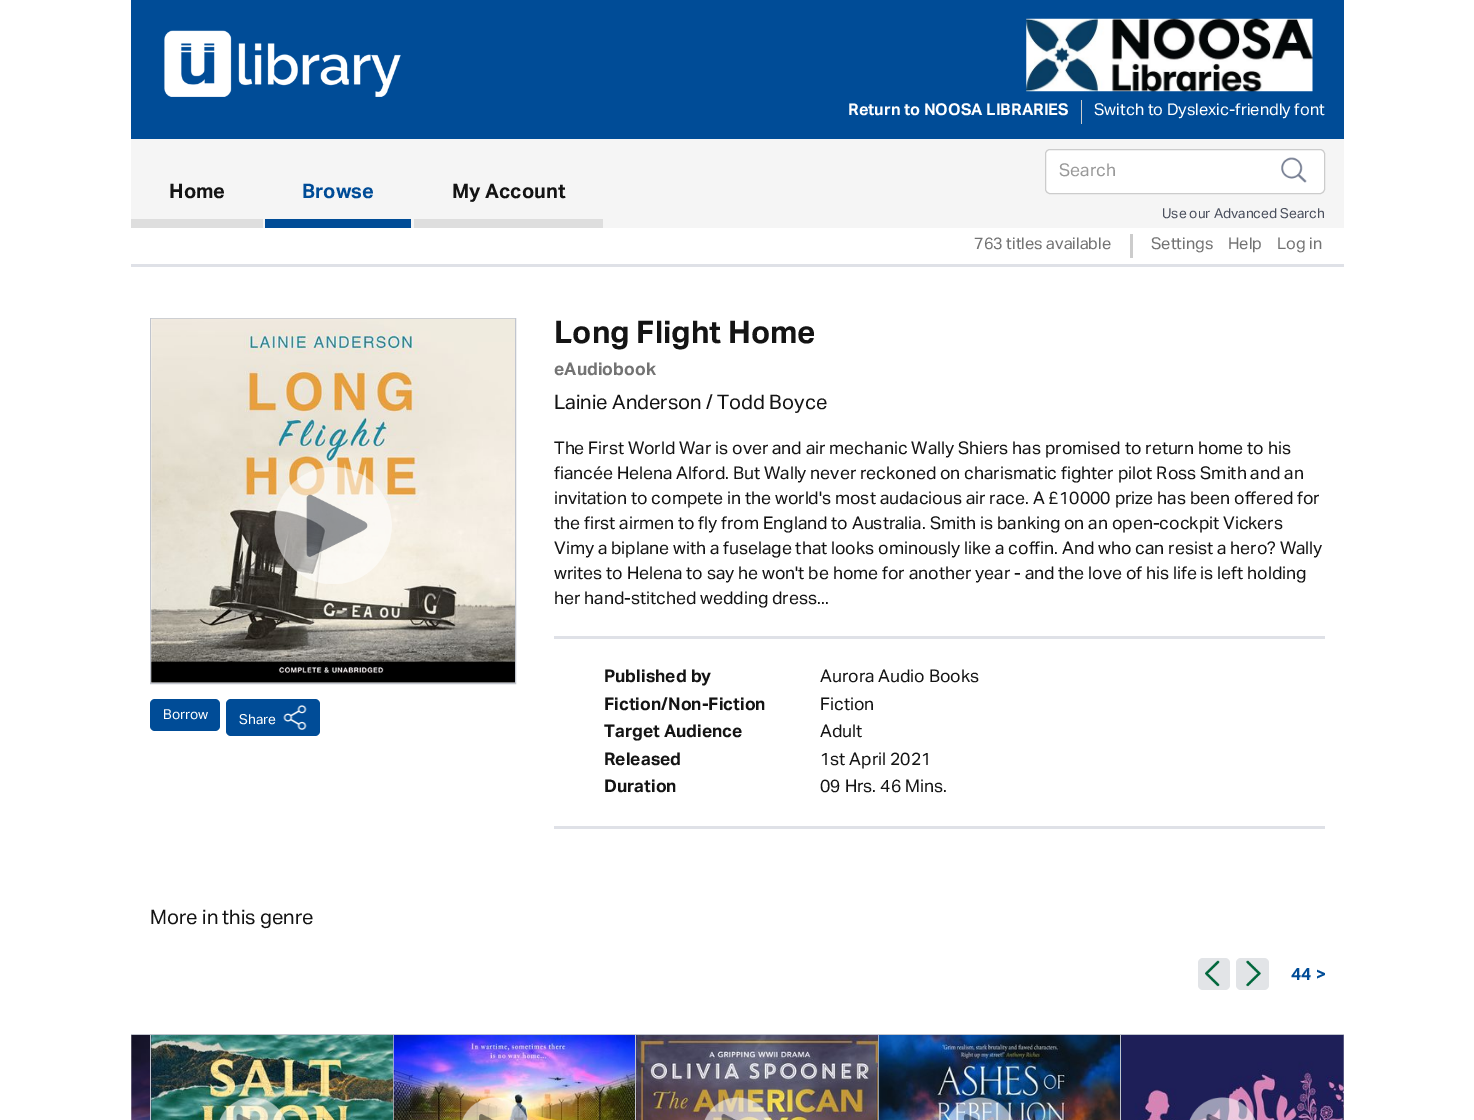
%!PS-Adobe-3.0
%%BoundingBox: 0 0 1474 1120
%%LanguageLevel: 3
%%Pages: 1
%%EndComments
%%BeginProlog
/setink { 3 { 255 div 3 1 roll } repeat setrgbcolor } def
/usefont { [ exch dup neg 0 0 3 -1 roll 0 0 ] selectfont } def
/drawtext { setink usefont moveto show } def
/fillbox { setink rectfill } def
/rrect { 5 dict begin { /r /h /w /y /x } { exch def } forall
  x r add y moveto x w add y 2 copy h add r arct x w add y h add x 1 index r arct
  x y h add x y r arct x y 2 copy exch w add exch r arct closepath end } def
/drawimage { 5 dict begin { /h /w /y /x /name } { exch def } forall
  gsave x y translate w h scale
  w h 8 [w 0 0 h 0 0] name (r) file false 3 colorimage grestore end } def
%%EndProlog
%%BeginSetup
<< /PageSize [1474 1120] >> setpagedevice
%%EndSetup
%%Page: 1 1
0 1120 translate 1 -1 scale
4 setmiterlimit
0 0 1474 1120 255 255 255 fillbox
131 0 1213 139 0 76 151 fillbox
(assets/img1.rgb) 164 30 237 67 drawimage
(assets/img2.rgb) 1026 18 287 74 drawimage
1081 100 1 24 204 204 204 fillbox
(Return to NOOSA LIBRARIES) 848 115 /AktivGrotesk-Bold 16.25 255 255 255 drawtext
(Switch to Dyslexic-friendly font) 1094 115 /AktivGrotesk-Regular 16.25 255 255 255 drawtext
131 139 1213 89 245 245 245 fillbox
131 219 132 9 222 222 222 fillbox
(Home) 169 198 /AktivGrotesk-Bold 20 20 20 20 drawtext
265 219 146 9 0 76 151 fillbox
(Browse) 302 198 /AktivGrotesk-Bold 20 0 76 151 drawtext
414 219 189 9 222 222 222 fillbox
(My Account) 452 198 /AktivGrotesk-Bold 20 20 20 20 drawtext
255 255 255 setink
1045.5 149.5 279 44 4.5 rrect gsave fill grestore
204 204 204 setink
stroke
(Search) 1059 176 /AktivGrotesk-Regular 17.5 153 153 153 drawtext
(assets/img3.rgb) 1281 157 26 26 drawimage
(Use our Advanced Search) 1162 218 /AktivGrotesk-Regular 13.75 74 79 93 drawtext
(763 titles available) 974 249 /AktivGrotesk-Regular 16.25 115 115 115 drawtext
1130 234 3 24 204 204 204 fillbox
(Settings) 1151 249 /AktivGrotesk-Regular 16.25 115 115 115 drawtext
(Help) 1228 249 /AktivGrotesk-Regular 16.25 115 115 115 drawtext
(Log in) 1277 249 /AktivGrotesk-Regular 16.25 115 115 115 drawtext
131 264 1213 3 223 225 231 fillbox
193 197 206 setink
150.5 318.5 365 365 rectstroke
(assets/img4.rgb) 151 318 364 365 drawimage
(assets/img5.rgb) 274 467 118 117 drawimage
0 76 151 setink
150 699 70 32 5 rrect fill
(Borrow) 163 719 /AktivGrotesk-Regular 13.75 255 255 255 drawtext
0 76 151 setink
226 699 94 37 5 rrect fill
(Share) 239 724 /AktivGrotesk-Regular 13.75 255 255 255 drawtext
(assets/img6.rgb) 283 705 24 25 drawimage
(Long Flight Home) 554 343 /AktivGrotesk-Bold 31.25 20 20 20 drawtext
(eAudiobook) 554 375 /AktivGrotesk-Bold 17.5 115 115 115 drawtext
(Lainie Anderson / Todd Boyce) 554 409 /AktivGrotesk-Regular 20 20 20 20 drawtext
(The First World War is over and air mechanic Wally Shiers has promised to return home to his) 554 454 /AktivGrotesk-Regular 17.5 20 20 20 drawtext
(fiancée Helena Alford. But Wally never reckoned on charismatic fighter pilot Ross Smith and an) 554 479 /AktivGrotesk-Regular 17.5 20 20 20 drawtext
(invitation to compete in the world's most audacious air race. A £10000 prize has been offered for) 554 504 /AktivGrotesk-Regular 17.5 20 20 20 drawtext
(the first airmen to fly from England to Australia. Smith is banking on an open-cockpit Vickers) 554 529 /AktivGrotesk-Regular 17.5 20 20 20 drawtext
(Vimy a biplane with a fuselage that looks ominously like a coffin. And who can resist a hero? Wally) 554 554 /AktivGrotesk-Regular 17.5 20 20 20 drawtext
(writes to Helena to say he won't be home for another year - and the love of his life is left holding) 554 579 /AktivGrotesk-Regular 17.5 20 20 20 drawtext
(her hand-stitched wedding dress...) 554 604 /AktivGrotesk-Regular 17.5 20 20 20 drawtext
554 636 771 3 223 225 231 fillbox
(Published by) 604 682 /AktivGrotesk-Bold 17.5 20 20 20 drawtext
(Aurora Audio Books) 820 682 /AktivGrotesk-Regular 17.5 20 20 20 drawtext
(Fiction/Non-Fiction) 604 710 /AktivGrotesk-Bold 17.5 20 20 20 drawtext
(Fiction) 820 710 /AktivGrotesk-Regular 17.5 20 20 20 drawtext
(Target Audience) 604 737 /AktivGrotesk-Bold 17.5 20 20 20 drawtext
(Adult) 820 737 /AktivGrotesk-Regular 17.5 20 20 20 drawtext
(Released) 604 765 /AktivGrotesk-Bold 17.5 20 20 20 drawtext
(1st April 2021) 820 765 /AktivGrotesk-Regular 17.5 20 20 20 drawtext
(Duration) 604 792 /AktivGrotesk-Bold 17.5 20 20 20 drawtext
(09 Hrs. 46 Mins.) 820 792 /AktivGrotesk-Regular 17.5 20 20 20 drawtext
554 826 771 3 223 225 231 fillbox
(More in this genre) 150 924 /AktivGrotesk-Regular 20 20 20 20 drawtext
226 228 231 setink
1198 958 32 32 5 rrect fill
(assets/img7.rgb) 1205 960 15 27 drawimage
1236 958 33 32 5 rrect fill
(assets/img8.rgb) 1246 960 15 27 drawimage
(44 >) 1291 980 /AktivGrotesk-Bold 17.5 0 76 151 drawtext
gsave
131 1015 1213 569 rectclip
193 197 206 setink
-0.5 1034.5 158 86 rectstroke
grestore
(assets/img9.rgb) 131 1035 21 85 drawimage
193 197 206 setink
150.5 1034.5 249 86 rectstroke
(assets/img10.rgb) 151 1035 242 85 drawimage
(assets/img11.rgb) 219 1097 67 23 drawimage
393.5 1034.5 249 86 rectstroke
(assets/img12.rgb) 393 1035 244 85 drawimage
(assets/img13.rgb) 462 1097 66 23 drawimage
635.5 1034.5 249 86 rectstroke
(assets/img14.rgb) 636 1035 242 85 drawimage
(assets/img15.rgb) 704 1097 67 23 drawimage
878.5 1034.5 249 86 rectstroke
(assets/img16.rgb) 878 1035 244 85 drawimage
(assets/img17.rgb) 947 1097 66 23 drawimage
gsave
131 1015 1213 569 rectclip
1120.5 1034.5 249 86 rectstroke
grestore
(assets/img18.rgb) 1121 1035 223 85 drawimage
(assets/img19.rgb) 1189 1097 67 23 drawimage
showpage
%%EOF
